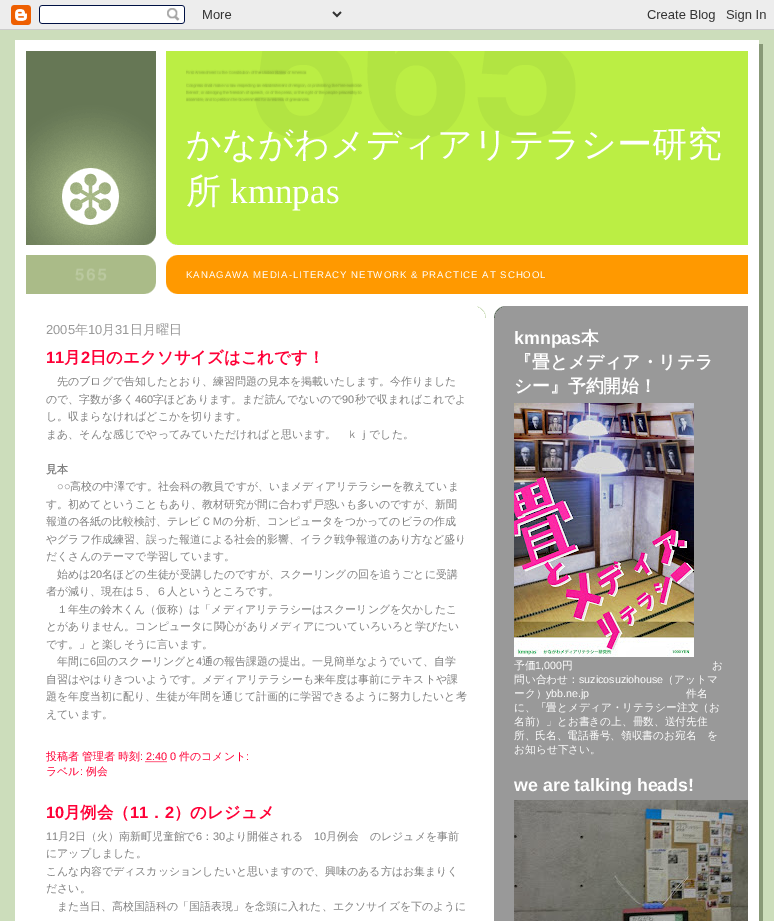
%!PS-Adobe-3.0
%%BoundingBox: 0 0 774 921
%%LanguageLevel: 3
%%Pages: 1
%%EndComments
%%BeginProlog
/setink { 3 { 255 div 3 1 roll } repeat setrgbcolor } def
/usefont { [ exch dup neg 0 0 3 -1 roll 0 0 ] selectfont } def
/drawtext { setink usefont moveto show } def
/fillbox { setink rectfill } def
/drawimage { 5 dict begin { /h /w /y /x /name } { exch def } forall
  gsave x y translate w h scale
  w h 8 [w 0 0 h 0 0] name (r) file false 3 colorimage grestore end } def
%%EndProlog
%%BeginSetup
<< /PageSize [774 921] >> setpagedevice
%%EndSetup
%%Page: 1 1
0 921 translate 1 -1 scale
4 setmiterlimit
0 0 774 921 204 221 187 fillbox
(assets/img1.rgb) 0 0 774 30 drawimage
759 44 4 877 136 153 119 fillbox
15 40 744 881 255 255 255 fillbox
166 51 582 194 187 238 68 fillbox
(assets/img2.rgb) 26 51 152 194 drawimage
(assets/img3.rgb) 186 51 390 88 drawimage
(かながわメディアリテラシー研究) 186 156 /WenQuanYiZenHei-Medium 35.1 255 255 255 drawtext
(所) 186 203 /WenQuanYiZenHei-Medium 35.1 255 255 255 drawtext
(kmnpas) 230 203 /LiberationSerif-Regular 35.1 255 255 255 drawtext
166 255 582 39 255 153 0 fillbox
(assets/img4.rgb) 26 255 152 39 drawimage
(assets/img5.rgb) 144 282 34 12 drawimage
(assets/img6.rgb) 75 268 32 13 drawimage
/LiberationSans-Regular 9.65 usefont
255 255 255 setink
186 278 moveto 0.97 0 (KANAGAWA MEDIA-LITERACY NETWORK & PRACTICE AT SCHOOL) ashow
(assets/img7.rgb) 477 306 9 12 drawimage
(2005) 46 334 /LiberationSans-Regular 13 153 153 153 drawtext
(年) 75 334 /WenQuanYiZenHei-Medium 13 153 153 153 drawtext
(10) 88 334 /LiberationSans-Regular 13 153 153 153 drawtext
(月) 102 334 /WenQuanYiZenHei-Medium 13 153 153 153 drawtext
(31) 115 334 /LiberationSans-Regular 13 153 153 153 drawtext
(日月曜日) 130 334 /WenQuanYiZenHei-Medium 13 153 153 153 drawtext
(11) 46 363 /LiberationSans-Bold 16.4 255 0 55 drawtext
(月) 64 363 /WenQuanYiZenHei-Bold 16.4 255 0 55 drawtext
(2) 81 363 /LiberationSans-Bold 16.4 255 0 55 drawtext
(日のエクソサイズはこれです！) 90 363 /WenQuanYiZenHei-Bold 16.4 255 0 55 drawtext
(先のブログで告知したとおり、練習問題の見本を掲載いたします。今作りました) 57 385 /WenQuanYiZenHei-Medium 10.95 127 127 127 drawtext
(ので、字数が多く) 46 403 /WenQuanYiZenHei-Medium 10.95 127 127 127 drawtext
(460) 135 403 /LiberationSans-Regular 10.95 127 127 127 drawtext
(字ほどあります。まだ読んでないので) 153 403 /WenQuanYiZenHei-Medium 10.95 127 127 127 drawtext
(90) 342 403 /LiberationSans-Regular 10.95 127 127 127 drawtext
(秒で収まればこれでよ) 355 403 /WenQuanYiZenHei-Medium 10.95 127 127 127 drawtext
(し。収まらなければどこかを切ります。) 46 420 /WenQuanYiZenHei-Medium 10.95 127 127 127 drawtext
(まあ、そんな感じでやってみていただければと思います。　ｋｊでした。) 46 438 /WenQuanYiZenHei-Medium 10.95 127 127 127 drawtext
(見本) 46 473 /WenQuanYiZenHei-Bold 10.95 127 127 127 drawtext
(○○) 57 490 /LiberationSans-Regular 10.95 127 127 127 drawtext
(高校の中澤です。社会科の教員ですが、いまメディアリテラシーを教えていま) 70 490 /WenQuanYiZenHei-Medium 10.95 127 127 127 drawtext
(す。初めてということもあり、教材研究が間に合わず戸惑いも多いのですが、新聞) 46 508 /WenQuanYiZenHei-Medium 10.95 127 127 127 drawtext
(報道の各紙の比較検討、テレビＣＭの分析、コンピュータをつかってのビラの作成) 46 525 /WenQuanYiZenHei-Medium 10.95 127 127 127 drawtext
(やグラフ作成練習、誤った報道による社会的影響、イラク戦争報道のあり方など盛り) 46 543 /WenQuanYiZenHei-Medium 10.95 127 127 127 drawtext
(だくさんのテーマで学習しています。) 46 560 /WenQuanYiZenHei-Medium 10.95 127 127 127 drawtext
(始めは) 57 578 /WenQuanYiZenHei-Medium 10.95 127 127 127 drawtext
(20) 90 578 /LiberationSans-Regular 10.95 127 127 127 drawtext
(名ほどの生徒が受講したのですが、スクーリングの回を追うごとに受講) 102 578 /WenQuanYiZenHei-Medium 10.95 127 127 127 drawtext
(者が減り、現在は５、６人というところです。) 46 595 /WenQuanYiZenHei-Medium 10.95 127 127 127 drawtext
(１年生の鈴木くん（仮称）は「メディアリテラシーはスクーリングを欠かしたこ) 57 613 /WenQuanYiZenHei-Medium 10.95 127 127 127 drawtext
(とがありません。コンピュータに関心がありメディアについていろいろと学びたい) 46 630 /WenQuanYiZenHei-Medium 10.95 127 127 127 drawtext
(です。」と楽しそうに言います。) 46 648 /WenQuanYiZenHei-Medium 10.95 127 127 127 drawtext
(年間に) 57 665 /WenQuanYiZenHei-Medium 10.95 127 127 127 drawtext
(6) 90 665 /LiberationSans-Regular 10.95 127 127 127 drawtext
(回のスクーリングと) 96 665 /WenQuanYiZenHei-Medium 10.95 127 127 127 drawtext
(4) 196 665 /LiberationSans-Regular 10.95 127 127 127 drawtext
(通の報告課題の提出。一見簡単なようでいて、自学) 202 665 /WenQuanYiZenHei-Medium 10.95 127 127 127 drawtext
(自習はやはりきついようです。メディアリテラシーも来年度は事前にテキストや課) 46 683 /WenQuanYiZenHei-Medium 10.95 127 127 127 drawtext
(題を年度当初に配り、生徒が年間を通じて計画的に学習できるように努力したいと考) 46 700 /WenQuanYiZenHei-Medium 10.95 127 127 127 drawtext
(えています。) 46 718 /WenQuanYiZenHei-Medium 10.95 127 127 127 drawtext
(投稿者 管理者 時刻) 46 760 /WenQuanYiZenHei-Medium 10.95 255 0 55 drawtext
(: 2:40 0) 140 760 /LiberationSans-Regular 10.95 255 0 55 drawtext
[1 1] 0 setdash
145.5 761.5 moveto 167 761.5 lineto stroke
(件のコメント) 179 760 /WenQuanYiZenHei-Medium 10.95 255 0 55 drawtext
(:) 246 760 /LiberationSans-Regular 10.95 255 0 55 drawtext
(ラベル) 46 775 /WenQuanYiZenHei-Medium 10.95 255 0 55 drawtext
(:) 80 775 /LiberationSans-Regular 10.95 255 0 55 drawtext
(例会) 86 775 /WenQuanYiZenHei-Medium 10.95 255 0 55 drawtext
(10) 46 818 /LiberationSans-Bold 16.4 255 0 55 drawtext
(月例会（) 64 818 /WenQuanYiZenHei-Bold 16.4 255 0 55 drawtext
(11) 130 818 /LiberationSans-Bold 16.4 255 0 55 drawtext
(．) 148 818 /WenQuanYiZenHei-Bold 16.4 255 0 55 drawtext
(2) 165 818 /LiberationSans-Bold 16.4 255 0 55 drawtext
(）のレジュメ) 174 818 /WenQuanYiZenHei-Bold 16.4 255 0 55 drawtext
(11) 46 840 /LiberationSans-Regular 10.95 127 127 127 drawtext
(月) 58 840 /WenQuanYiZenHei-Medium 10.95 127 127 127 drawtext
(2) 69 840 /LiberationSans-Regular 10.95 127 127 127 drawtext
(日（火）南新町児童館で) 75 840 /WenQuanYiZenHei-Medium 10.95 127 127 127 drawtext
(6) 196 840 /LiberationSans-Regular 10.95 127 127 127 drawtext
(：) 202 840 /WenQuanYiZenHei-Medium 10.95 127 127 127 drawtext
(30) 213 840 /LiberationSans-Regular 10.95 127 127 127 drawtext
(より開催される) 225 840 /WenQuanYiZenHei-Medium 10.95 127 127 127 drawtext
(10) 314 840 /LiberationSans-Regular 10.95 127 127 127 drawtext
(月例会　のレジュメを事前) 326 840 /WenQuanYiZenHei-Medium 10.95 127 127 127 drawtext
(にアップしました。) 46 857 /WenQuanYiZenHei-Medium 10.95 127 127 127 drawtext
(こんな内容でディスカッションしたいと思いますので、興味のある方はお集まりく) 46 875 /WenQuanYiZenHei-Medium 10.95 127 127 127 drawtext
(ださい。) 46 892 /WenQuanYiZenHei-Medium 10.95 127 127 127 drawtext
(また当日、高校国語科の「国語表現」を念頭に入れた、エクソサイズを下のように) 57 910 /WenQuanYiZenHei-Medium 10.95 127 127 127 drawtext
494 306 254 615 153 153 153 fillbox
(assets/img8.rgb) 494 306 9 12 drawimage
(kmnpas) 514 344 /LiberationSans-Bold 17.8 255 255 255 drawtext
(本) 581 344 /WenQuanYiZenHei-Bold 17.8 255 255 255 drawtext
(『畳とメディア・リテラ) 514 368 /WenQuanYiZenHei-Bold 17.8 255 255 255 drawtext
(シー』予約開始！) 514 392 /WenQuanYiZenHei-Bold 17.8 255 255 255 drawtext
(assets/img9.rgb) 514 403 180 254 drawimage
(予価) 514 669 /WenQuanYiZenHei-Medium 10.7 255 255 255 drawtext
(1,000) 535 669 /LiberationSans-Regular 10.7 255 255 255 drawtext
(円　　　　　　　　　　　　　お) 562 669 /WenQuanYiZenHei-Medium 10.7 255 255 255 drawtext
(問い合わせ：) 514 683 /WenQuanYiZenHei-Medium 10.7 255 255 255 drawtext
(suzicosuziohouse) 579 683 /LiberationSans-Regular 10.7 255 255 255 drawtext
(（アットマ) 663 683 /WenQuanYiZenHei-Medium 10.7 255 255 255 drawtext
(ーク）) 514 697 /WenQuanYiZenHei-Medium 10.7 255 255 255 drawtext
(ybb.ne.jp) 546 697 /LiberationSans-Regular 10.7 255 255 255 drawtext
(件名) 686 697 /WenQuanYiZenHei-Medium 10.7 255 255 255 drawtext
(に、「畳とメディア・リテラシー注文（お) 514 711 /WenQuanYiZenHei-Medium 10.7 255 255 255 drawtext
(名前）」とお書きの上、冊数、送付先住) 514 725 /WenQuanYiZenHei-Medium 10.7 255 255 255 drawtext
(所、氏名、電話番号、領収書のお宛名　を) 514 739 /WenQuanYiZenHei-Medium 10.7 255 255 255 drawtext
(お知らせ下さい。) 514 753 /WenQuanYiZenHei-Medium 10.7 255 255 255 drawtext
(we are talking heads!) 514 791 /LiberationSans-Bold 17.8 255 255 255 drawtext
(assets/img10.rgb) 514 800 234 121 drawimage
showpage
%%EOF
